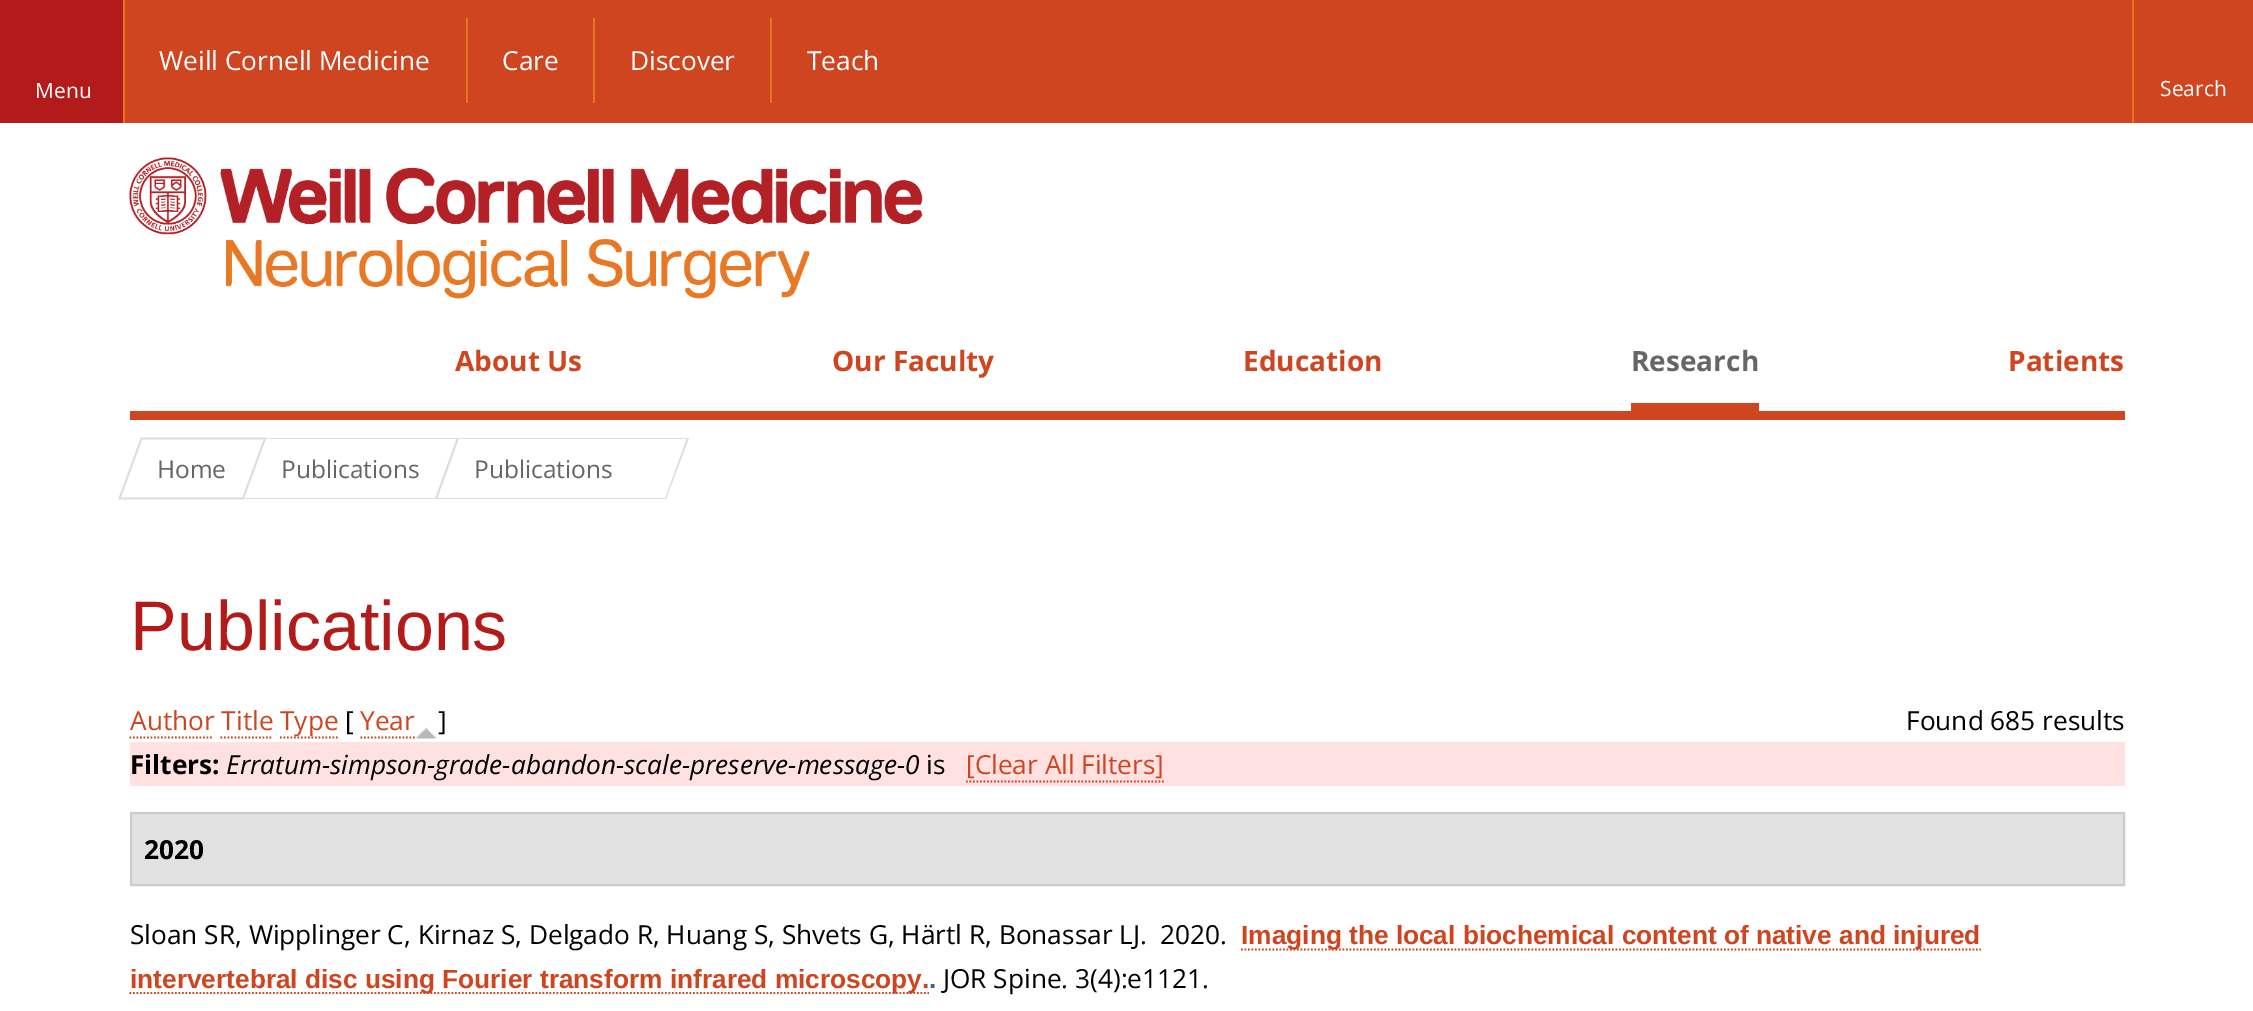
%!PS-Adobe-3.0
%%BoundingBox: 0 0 2253 1011
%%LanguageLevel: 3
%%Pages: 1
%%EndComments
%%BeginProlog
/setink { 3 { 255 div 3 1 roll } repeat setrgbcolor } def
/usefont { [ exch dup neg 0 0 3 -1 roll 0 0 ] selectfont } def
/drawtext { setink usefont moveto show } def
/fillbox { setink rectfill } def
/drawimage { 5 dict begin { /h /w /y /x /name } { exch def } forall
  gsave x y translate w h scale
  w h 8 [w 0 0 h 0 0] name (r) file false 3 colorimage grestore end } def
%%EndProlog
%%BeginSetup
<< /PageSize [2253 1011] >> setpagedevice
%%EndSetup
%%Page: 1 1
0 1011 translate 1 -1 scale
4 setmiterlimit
0 0 2253 1011 255 255 255 fillbox
125 0 2128 123 207 69 32 fillbox
466 18 2 85 231 117 29 fillbox
(Weill Cornell Medicine) 159 70 /OpenSans-Regular 26.25 255 255 255 drawtext
593 18 2 85 231 117 29 fillbox
(Care) 502 70 /OpenSans-Regular 26.25 255 255 255 drawtext
770 18 2 85 231 117 29 fillbox
(Discover) 630 70 /OpenSans-Regular 26.25 255 255 255 drawtext
(Teach) 807 70 /OpenSans-Regular 26.25 255 255 255 drawtext
0 0 123 123 179 27 27 fillbox
123 0 2 123 231 117 29 fillbox
(Menu) 35 98 /OpenSans-Regular 21 255 255 255 drawtext
2132 0 2 123 231 117 29 fillbox
(Search) 2160 96 /OpenSans-Regular 21 255 255 255 drawtext
(assets/img1.rgb) 129 157 794 142 drawimage
130 411 1995 9 207 69 32 fillbox
(About Us) 455 371 /OpenSans-Bold 28 207 69 32 drawtext
(Our Faculty) 832 371 /OpenSans-Bold 28 207 69 32 drawtext
(Education) 1243 371 /OpenSans-Bold 28 207 69 32 drawtext
1631 403 128 8 207 69 32 fillbox
(Research) 1631 371 /OpenSans-Bold 28 102 102 102 drawtext
(Patients) 2008 371 /OpenSans-Bold 28 207 69 32 drawtext
221 221 221 setink
1.8 setlinewidth
141.5 438.5 moveto 265 438.5 lineto 243 498.5 lineto 119.5 498.5 lineto closepath stroke
(Home) 157 478 /OpenSans-Regular 24.5 102 102 102 drawtext
221 221 221 setink
266 438 moveto 459 438 lineto 458 439 lineto 265 439 lineto closepath fill
457 438 moveto 459 438 lineto 437 499 lineto 435 499 lineto closepath fill
244 498 193 1 221 221 221 fillbox
(Publications) 281 478 /OpenSans-Regular 24.5 102 102 102 drawtext
221 221 221 setink
459 438 moveto 689 438 lineto 688 439 lineto 458 439 lineto closepath fill
687 438 moveto 689 438 lineto 666 499 lineto 665 499 lineto closepath fill
437 498 moveto 667 498 lineto 666 499 lineto 437 499 lineto closepath fill
(Publications) 474 478 /OpenSans-Regular 24.5 102 102 102 drawtext
(Publications) 130 650 /LiberationSans-Regular 70 179 27 27 drawtext
(Author Title) 130 730 /OpenSans-Regular 26.25 207 69 32 drawtext
[1.75 1.75] 0 setdash
129.5 737.5 moveto 213.5 737.5 lineto stroke
280 737.5 moveto 338 737.5 lineto stroke
(Type) 280 730 /OpenSans-Regular 26.25 207 69 32 drawtext
([) 345 730 /OpenSans-Regular 26.25 0 0 0 drawtext
(Year) 360 730 /OpenSans-Regular 26.25 207 69 32 drawtext
360.5 737.5 moveto 415 737.5 lineto stroke
(assets/img2.rgb) 416 727 21 12 drawimage
(]) 438 730 /OpenSans-Regular 26.25 0 0 0 drawtext
(Found 685 results) 1906 730 /OpenSans-Regular 26.25 0 0 0 drawtext
207 69 32 setink
220.5 737.5 moveto 273 737.5 lineto stroke
130 742 1995 44 255 225 225 fillbox
(Filters:) 130 774 /OpenSans-Bold 26.25 0 0 0 drawtext
(Erratum-simpson-grade-abandon-scale-preserve-message-0) 226 774 /OpenSans-Italic 26.25 0 0 0 drawtext
(is) 926 774 /OpenSans-Regular 26.25 0 0 0 drawtext
([Clear All Filters]) 966 774 /OpenSans-Regular 26.25 207 69 32 drawtext
966 781.5 moveto 1164 781.5 lineto stroke
225 225 225 setink
131 813 moveto 2124 813 lineto 2124 885 lineto 131 885 lineto closepath gsave fill grestore
204 204 204 setink
2 setlinewidth
[] 0 setdash
stroke
(2020) 144 859 /OpenSans-Bold 26.25 0 0 0 drawtext
(Sloan SR, Wipplinger C, Kirnaz S, Delgado R, Huang S, Shvets G, Härtl R, Bonassar LJ.) 130 944 /OpenSans-Regular 26.25 0 0 0 drawtext
(2020.) 1160 944 /OpenSans-Regular 26.25 0 0 0 drawtext
207 69 32 setink
1.8 setlinewidth
[1.75 1.75] 0 setdash
1241 949.5 moveto 1981 949.5 lineto stroke
(Imaging the local biochemical content of native and injured) 1241 944 /LiberationSans-Bold 26.25 207 69 32 drawtext
129.5 993 moveto 929 993 lineto stroke
(intervertebral disc using Fourier transform infrared microscopy.) 130 988 /LiberationSans-Bold 26.25 207 69 32 drawtext
(.) 929 988 /LiberationSans-Bold 26.25 51 101 153 drawtext
(JOR Spine. 3\(4\):e1121.) 943 988 /OpenSans-Regular 26.25 0 0 0 drawtext
showpage
%%EOF
